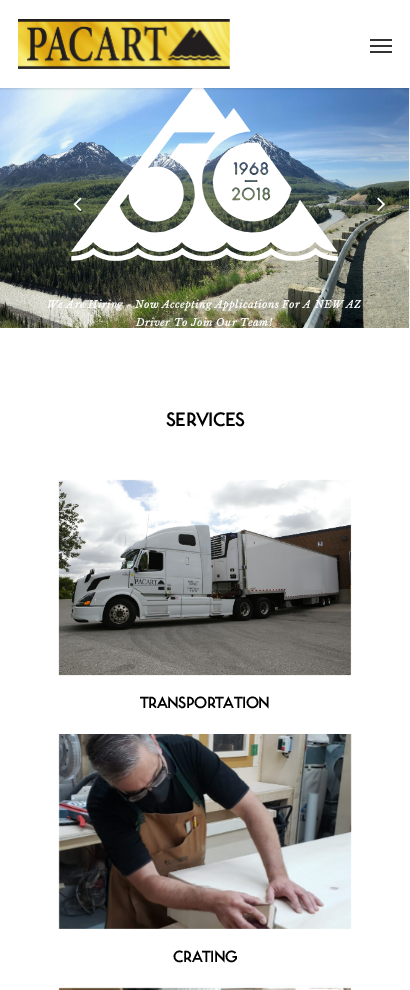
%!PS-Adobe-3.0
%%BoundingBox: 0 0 410 990
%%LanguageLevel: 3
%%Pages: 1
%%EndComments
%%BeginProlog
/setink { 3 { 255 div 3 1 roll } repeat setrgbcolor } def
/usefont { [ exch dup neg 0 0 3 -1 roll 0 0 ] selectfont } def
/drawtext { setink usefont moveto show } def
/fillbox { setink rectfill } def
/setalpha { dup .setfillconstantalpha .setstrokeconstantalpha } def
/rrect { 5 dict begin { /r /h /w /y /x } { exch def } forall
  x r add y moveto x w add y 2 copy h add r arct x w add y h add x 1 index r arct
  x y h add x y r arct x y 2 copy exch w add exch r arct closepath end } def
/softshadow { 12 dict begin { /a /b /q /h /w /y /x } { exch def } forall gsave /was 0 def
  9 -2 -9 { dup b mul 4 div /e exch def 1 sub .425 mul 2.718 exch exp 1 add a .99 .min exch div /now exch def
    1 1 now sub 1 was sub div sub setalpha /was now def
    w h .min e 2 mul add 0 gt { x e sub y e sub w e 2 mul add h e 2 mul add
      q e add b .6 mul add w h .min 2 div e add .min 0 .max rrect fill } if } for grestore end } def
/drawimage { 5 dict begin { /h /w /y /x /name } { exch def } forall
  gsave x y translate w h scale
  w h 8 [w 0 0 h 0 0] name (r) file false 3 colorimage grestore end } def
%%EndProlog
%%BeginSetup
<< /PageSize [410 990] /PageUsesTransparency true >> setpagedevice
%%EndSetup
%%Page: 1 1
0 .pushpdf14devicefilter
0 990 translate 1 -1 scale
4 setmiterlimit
0 0 410 990 246 246 246 fillbox
(assets/img4.rgb) 0 88 409 240 drawimage
(assets/img5.rgb) 71 88 267 173 drawimage
0 0 0 setink
0 0 410 88 0 1.5 0.22 softshadow
0 0 410 88 255 255 255 fillbox
(assets/img1.rgb) 18 19 212 50 drawimage
370 39 22 2 51 51 51 fillbox
370 51 22 2 51 51 51 fillbox
370 45 22 2 51 51 51 fillbox
(assets/img2.rgb) 73 197 9 14 drawimage
(assets/img3.rgb) 377 197 8 14 drawimage
/LibreBaskerville-BoldItalic 10 usefont
255 255 255 setink
47 308 moveto 0.5 0 (We Are Hiring - Now Accepting Applications For A NEW AZ) ashow
136 326 moveto 0.5 0 (Driver To Join Our Team!) ashow
0 328 410 662 255 255 255 fillbox
(SERVICES) 166 426 /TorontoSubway-Bold 19.5 0 0 0 drawtext
(assets/img6.rgb) 58 479 294 197 drawimage
(TRANSPORTATION) 140 708 /TorontoSubway-Bold 16.25 0 0 0 drawtext
(assets/img7.rgb) 58 734 294 195 drawimage
(CRATING) 173 962 /TorontoSubway-Bold 16.25 0 0 0 drawtext
(assets/img8.rgb) 58 987 293 3 drawimage
.poppdf14devicefilter showpage
%%EOF
